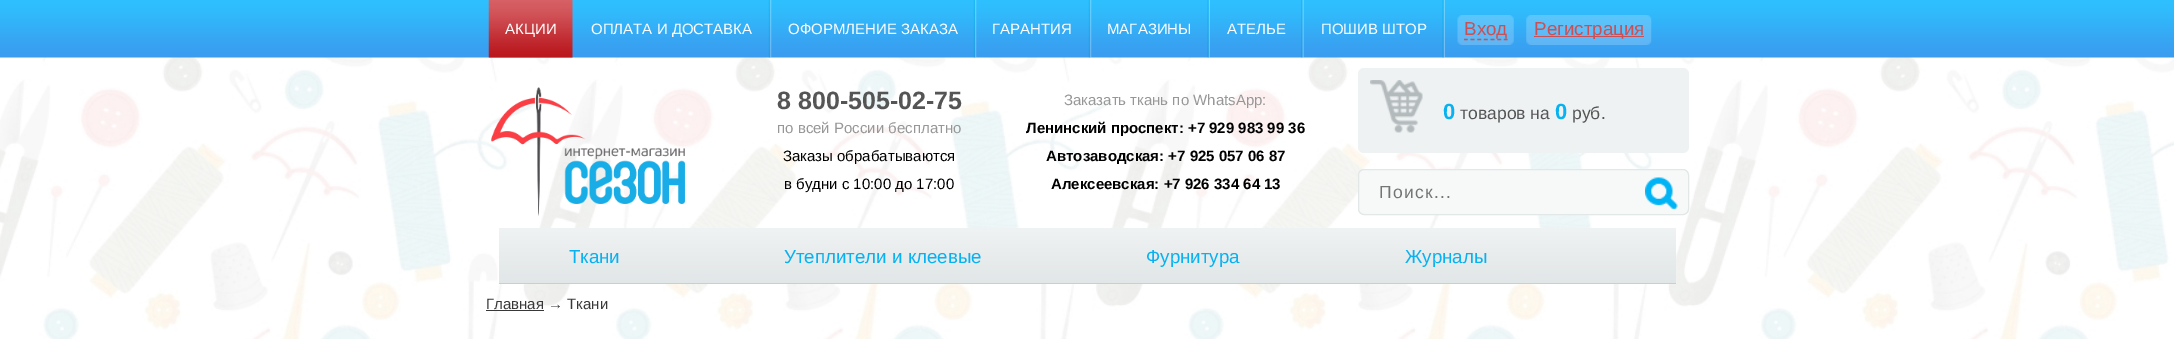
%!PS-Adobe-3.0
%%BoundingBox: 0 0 2174 339
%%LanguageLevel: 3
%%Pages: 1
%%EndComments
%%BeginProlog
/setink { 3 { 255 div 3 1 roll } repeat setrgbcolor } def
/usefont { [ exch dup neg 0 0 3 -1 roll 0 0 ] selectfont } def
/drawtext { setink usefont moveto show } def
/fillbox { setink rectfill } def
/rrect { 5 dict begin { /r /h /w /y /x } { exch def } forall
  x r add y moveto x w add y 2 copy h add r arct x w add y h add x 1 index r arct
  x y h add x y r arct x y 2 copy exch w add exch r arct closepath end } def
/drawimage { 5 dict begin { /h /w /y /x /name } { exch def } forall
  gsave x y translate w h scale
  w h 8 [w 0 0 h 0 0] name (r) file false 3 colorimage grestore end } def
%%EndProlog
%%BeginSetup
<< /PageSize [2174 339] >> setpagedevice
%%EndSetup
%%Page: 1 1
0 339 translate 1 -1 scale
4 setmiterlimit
0 0 2174 339 255 255 255 fillbox
(assets/img1.rgb) 0 57 2174 282 drawimage
(assets/img2.rgb) 0 0 2174 58 drawimage
(assets/img3.rgb) 1442 0 3 58 drawimage
(assets/img4.rgb) 488 0 85 58 drawimage
(АКЦИИ) 505 34 /LiberationSans-Regular 15 255 255 255 drawtext
(ОПЛАТА И ДОСТАВКА) 591 34 /LiberationSans-Regular 15 255 255 255 drawtext
(assets/img5.rgb) 768 0 4 58 drawimage
(ОФОРМЛЕНИЕ ЗАКАЗА) 788 34 /LiberationSans-Regular 15 255 255 255 drawtext
(assets/img6.rgb) 973 0 4 58 drawimage
(ГАРАНТИЯ) 992 34 /LiberationSans-Regular 15 255 255 255 drawtext
(assets/img6.rgb) 1088 0 4 58 drawimage
(МАГАЗИНЫ) 1107 34 /LiberationSans-Regular 15 255 255 255 drawtext
(assets/img3.rgb) 1207 0 3 58 drawimage
(АТЕЛЬЕ) 1227 34 /LiberationSans-Regular 15 255 255 255 drawtext
(assets/img7.rgb) 1301 0 3 58 drawimage
(ПОШИВ ШТОР) 1321 34 /LiberationSans-Regular 15 255 255 255 drawtext
(assets/img8.rgb) 1457 15 57 30 drawimage
203 80 85 setink
1.2 setlinewidth
[3.75 2.91] 0 setdash
1464 39.5 moveto 1507.5 39.5 lineto stroke
(Вход) 1464 35 /LiberationSans-Regular 18.75 203 80 85 drawtext
(assets/img9.rgb) 1526 15 126 30 drawimage
1534 36 110 1 203 80 85 fillbox
(Регистрация) 1534 35 /LiberationSans-Regular 18.75 203 80 85 drawtext
(assets/img10.rgb) 491 87 194 129 drawimage
(8 800-505-02-75) 777 109 /LiberationSans-Bold 25 85 85 85 drawtext
(по всей России бесплатно) 777 133 /LiberationSans-Regular 15 151 151 151 drawtext
(Заказы обрабатываются) 783 161 /LiberationSans-Regular 15 0 0 0 drawtext
(в будни с 10:00 до 17:00) 784 189 /LiberationSans-Regular 15 0 0 0 drawtext
(Заказать ткань по WhatsApp:) 1064 105 /LiberationSans-Regular 15 151 151 151 drawtext
(Ленинский проспект: +7 929 983 99 36) 1026 133 /LiberationSans-Bold 15 0 0 0 drawtext
(Автозаводская: +7 925 057 06 87) 1046 161 /LiberationSans-Bold 15 0 0 0 drawtext
(Алексеевская: +7 926 334 64 13) 1051 189 /LiberationSans-Bold 15 0 0 0 drawtext
239 242 243 setink
1358 68 331 85 6 rrect fill
(assets/img11.rgb) 1370 80 53 53 drawimage
(0) 1443 119 /LiberationSans-Bold 22 8 178 241 drawtext
(товаров на) 1460 119 /LiberationSans-Regular 17.5 85 85 85 drawtext
(0) 1555 119 /LiberationSans-Bold 22 8 178 241 drawtext
(руб.) 1572 119 /LiberationSans-Regular 17.5 85 85 85 drawtext
247 249 249 setink
1358.5 169.5 330 45 5.5 rrect gsave fill grestore
226 231 232 setink
1 setlinewidth
[] 0 setdash
stroke
117 117 117 setink
1379 198 moveto 1.25 0 (Поиск...) ashow
(assets/img12.rgb) 1645 177 33 33 drawimage
gsave 499 228 moveto 1676 228 lineto 1676 284 lineto 499 284 lineto closepath clip newpath
<< /ShadingType 2 /ColorSpace /DeviceRGB /Coords [1088 227 1088 284] /Extend [true true] /Function << /FunctionType 3 /Domain [0 1] /Functions [<< /FunctionType 2 /Domain [0 1] /C0 [0.941 0.953 0.957] /C1 [0.882 0.902 0.906] /N 1 >> << /FunctionType 2 /Domain [0 1] /C0 [0.882 0.902 0.906] /C1 [0.773 0.816 0.82] /N 1 >>] /Bounds [0.99] /Encode [0 1 0 1] >> >> shfill grestore
(Ткани) 569 263 /LiberationSans-Regular 18.75 8 178 241 drawtext
(Утеплители и клеевые) 784 263 /LiberationSans-Regular 18.75 8 178 241 drawtext
(Фурнитура) 1146 263 /LiberationSans-Regular 18.75 8 178 241 drawtext
(Журналы) 1405 263 /LiberationSans-Regular 18.75 8 178 241 drawtext
(Главная → Ткани) 486 309 /LiberationSans-Regular 15 56 56 56 drawtext
486 310 58 1 56 56 56 fillbox
showpage
%%EOF
